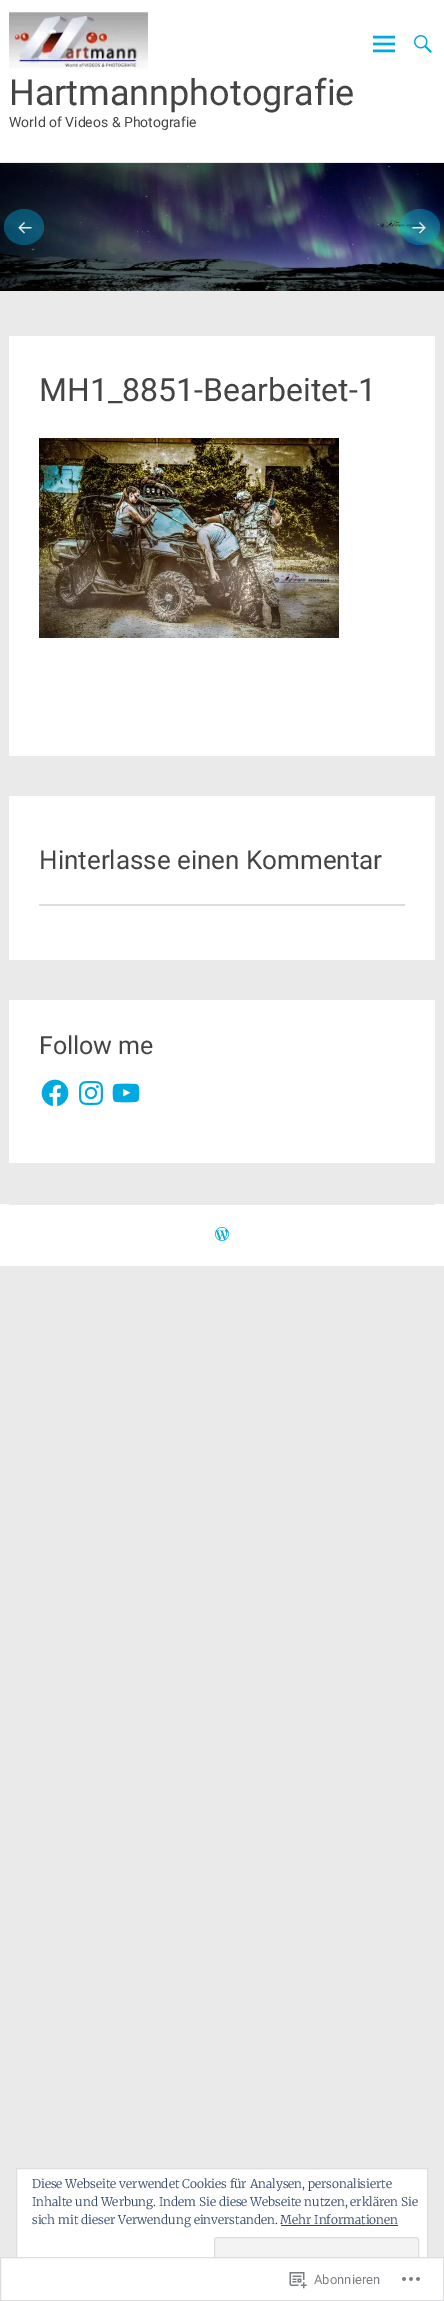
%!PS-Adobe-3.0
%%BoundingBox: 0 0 444 2301
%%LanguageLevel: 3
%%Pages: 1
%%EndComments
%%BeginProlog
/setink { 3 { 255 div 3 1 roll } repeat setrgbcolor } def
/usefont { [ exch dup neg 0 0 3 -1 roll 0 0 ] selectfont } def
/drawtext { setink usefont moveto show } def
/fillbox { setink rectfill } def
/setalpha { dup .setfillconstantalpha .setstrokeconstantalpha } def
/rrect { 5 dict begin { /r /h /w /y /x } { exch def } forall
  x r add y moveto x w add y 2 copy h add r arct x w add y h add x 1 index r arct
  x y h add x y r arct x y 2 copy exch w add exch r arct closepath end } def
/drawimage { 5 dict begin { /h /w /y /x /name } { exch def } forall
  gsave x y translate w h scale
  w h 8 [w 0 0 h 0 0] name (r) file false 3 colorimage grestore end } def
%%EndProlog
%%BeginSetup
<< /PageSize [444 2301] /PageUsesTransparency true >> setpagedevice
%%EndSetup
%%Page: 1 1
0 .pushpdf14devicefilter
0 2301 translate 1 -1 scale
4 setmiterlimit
0 0 444 2301 234 234 234 fillbox
0 0 444 162 255 255 255 fillbox
(assets/img1.rgb) 373 35 22 18 drawimage
(assets/img2.rgb) 414 35 18 18 drawimage
(assets/img3.rgb) 9 12 139 57 drawimage
(Hartmannphotografie) 9 105 /Roboto-Regular 36 68 68 68 drawtext
(World of Videos & Photografie) 9 127 /Roboto-Regular 14 68 68 68 drawtext
(assets/img4.rgb) 0 163 444 128 drawimage
0.4 setalpha
0 169 224 setink
24 209 moveto 35 209 44 217 44 227 curveto 44 237 35 245 24 245 curveto 13 245 4 237 4 227 curveto 4 217 13 209 24 209 curveto closepath fill
1 setalpha
(assets/img5.rgb) 18 222 14 12 drawimage
0.4 setalpha
420 209 moveto 431 209 440 217 440 227 curveto 440 237 431 245 420 245 curveto 409 245 400 237 400 227 curveto 400 217 409 209 420 209 curveto closepath fill
1 setalpha
(assets/img6.rgb) 412 222 14 12 drawimage
9 336 426 420 255 255 255 fillbox
(MH1_8851-Bearbeitet-1) 39 401 /Roboto-Regular 32 68 68 68 drawtext
(assets/img7.rgb) 39 438 300 200 drawimage
9 796 426 164 255 255 255 fillbox
(Hinterlasse einen Kommentar) 39 869 /Roboto-Regular 26 68 68 68 drawtext
39 904 366 2 220 220 222 fillbox
9 1000 426 163 255 255 255 fillbox
(Follow me) 39 1054 /Roboto-Regular 25 68 68 68 drawtext
(assets/img8.rgb) 41 1079 28 28 drawimage
(assets/img9.rgb) 79 1081 24 24 drawimage
(assets/img10.rgb) 112 1083 28 20 drawimage
0 1204 444 62 255 255 255 fillbox
9 1204 426 1 234 234 234 fillbox
(assets/img11.rgb) 215 1227 14 14 drawimage
255 255 255 setink
16.5 2168.5 moveto 427.5 2168.5 lineto 427.5 2284.5 lineto 16.5 2284.5 lineto closepath gsave fill grestore
222 222 222 setink
stroke
(Diese Webseite verwendet Cookies für Analysen, personalisierte) 32 2188 /Merriweather-Light 12 46 68 103 drawtext
(Inhalte und Werbung. Indem Sie diese Webseite nutzen, erklären Sie) 32 2206 /Merriweather-Light 12 46 68 103 drawtext
(sich mit dieser Verwendung einverstanden. Mehr Informationen) 32 2224 /Merriweather-Light 12 46 68 103 drawtext
281 2225 117 1 46 68 103 fillbox
243 243 243 setink
214.5 2237.5 204 38 2.5 rrect gsave fill grestore
222 222 222 setink
stroke
0.98 setalpha
0 2257 444 44 255 255 255 fillbox
220 220 222 setink
0.5 2257.5 443 43 rectstroke
1 setalpha
(assets/img12.rgb) 289 2272 18 17 drawimage
(Abonnieren) 314 2284 /Roboto-Regular 13 123 127 132 drawtext
(assets/img13.rgb) 402 2277 18 4 drawimage
.poppdf14devicefilter showpage
%%EOF
